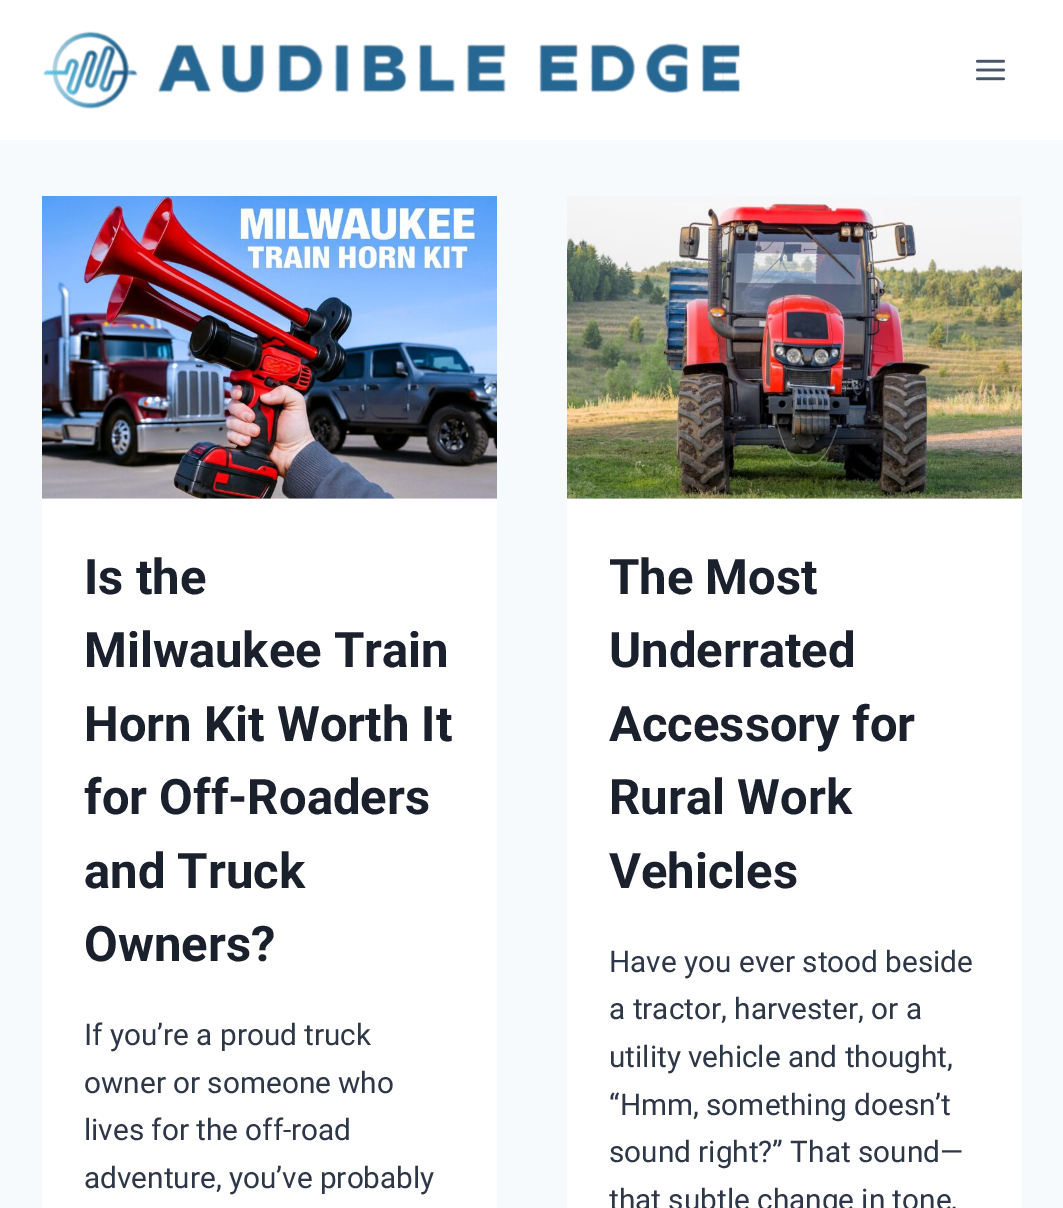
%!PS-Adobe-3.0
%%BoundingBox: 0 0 1063 1208
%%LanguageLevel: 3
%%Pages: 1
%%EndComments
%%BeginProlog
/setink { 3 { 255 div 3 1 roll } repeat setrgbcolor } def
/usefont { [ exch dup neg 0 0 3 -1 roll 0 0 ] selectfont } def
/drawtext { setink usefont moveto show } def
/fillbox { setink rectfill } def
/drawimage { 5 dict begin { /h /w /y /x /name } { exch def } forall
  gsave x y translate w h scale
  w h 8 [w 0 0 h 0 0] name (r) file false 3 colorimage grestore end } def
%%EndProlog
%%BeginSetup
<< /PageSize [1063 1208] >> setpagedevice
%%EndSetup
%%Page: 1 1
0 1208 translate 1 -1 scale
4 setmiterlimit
0 0 1063 1208 247 250 252 fillbox
0 0 1063 140 255 255 255 fillbox
(assets/img1.rgb) 43 31 697 78 drawimage
(assets/img2.rgb) 975 59 31 22 drawimage
42 498 455 710 255 255 255 fillbox
(assets/img3.rgb) 42 196 455 303 drawimage
(Is the) 84 594 /Roboto-Bold 49 26 32 44 drawtext
(Milwaukee Train) 84 667 /Roboto-Bold 49 26 32 44 drawtext
(Horn Kit Worth It) 84 741 /Roboto-Bold 49 26 32 44 drawtext
(for Off-Roaders) 84 814 /Roboto-Bold 49 26 32 44 drawtext
(and Truck) 84 888 /Roboto-Bold 49 26 32 44 drawtext
(Owners?) 84 961 /Roboto-Bold 49 26 32 44 drawtext
(If you’re a proud truck) 84 1045 /Roboto-Regular 29.75 45 55 72 drawtext
(owner or someone who) 84 1093 /Roboto-Regular 29.75 45 55 72 drawtext
(lives for the off-road) 84 1140 /Roboto-Regular 29.75 45 55 72 drawtext
(adventure, you’ve probably) 84 1188 /Roboto-Regular 29.75 45 55 72 drawtext
567 498 455 710 255 255 255 fillbox
(assets/img4.rgb) 567 196 455 303 drawimage
(The Most) 609 594 /Roboto-Bold 49 26 32 44 drawtext
(Underrated) 609 667 /Roboto-Bold 49 26 32 44 drawtext
(Accessory for) 609 741 /Roboto-Bold 49 26 32 44 drawtext
(Rural Work) 609 814 /Roboto-Bold 49 26 32 44 drawtext
(Vehicles) 609 888 /Roboto-Bold 49 26 32 44 drawtext
(Have you ever stood beside) 609 972 /Roboto-Regular 29.75 45 55 72 drawtext
(a tractor, harvester, or a) 609 1019 /Roboto-Regular 29.75 45 55 72 drawtext
(utility vehicle and thought,) 609 1067 /Roboto-Regular 29.75 45 55 72 drawtext
(“Hmm, something doesn’t) 609 1115 /Roboto-Regular 29.75 45 55 72 drawtext
(sound right?” That sound—) 609 1162 /Roboto-Regular 29.75 45 55 72 drawtext
(that subtle change in tone,) 609 1210 /Roboto-Regular 29.75 45 55 72 drawtext
showpage
%%EOF
